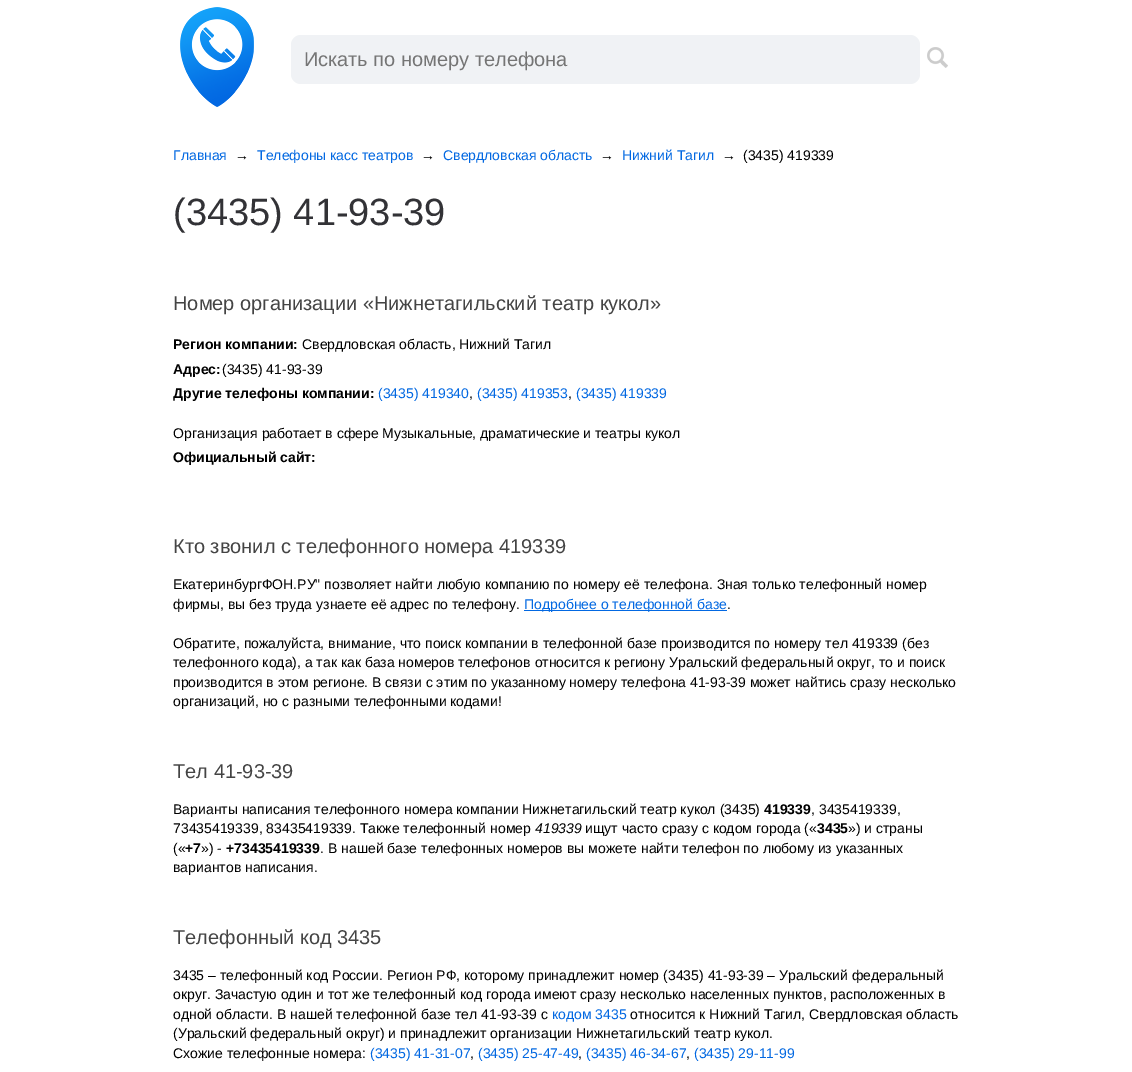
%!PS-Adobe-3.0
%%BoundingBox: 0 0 1132 1072
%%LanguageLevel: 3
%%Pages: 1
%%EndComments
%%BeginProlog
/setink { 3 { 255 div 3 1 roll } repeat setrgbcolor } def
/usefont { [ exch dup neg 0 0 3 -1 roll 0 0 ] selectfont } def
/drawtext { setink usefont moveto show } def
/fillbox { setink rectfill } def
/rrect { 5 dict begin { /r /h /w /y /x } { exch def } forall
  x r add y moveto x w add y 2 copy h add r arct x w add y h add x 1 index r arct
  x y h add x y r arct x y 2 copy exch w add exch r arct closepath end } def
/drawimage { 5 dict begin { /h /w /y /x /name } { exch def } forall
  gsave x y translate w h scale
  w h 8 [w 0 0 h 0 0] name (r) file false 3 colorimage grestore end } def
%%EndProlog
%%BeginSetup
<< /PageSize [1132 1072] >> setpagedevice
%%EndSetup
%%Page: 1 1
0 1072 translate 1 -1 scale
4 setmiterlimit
0 0 1132 1072 255 255 255 fillbox
(assets/img1.rgb) 180 7 74 100 drawimage
240 242 245 setink
291 35 629 49 10 rrect fill
(Искать по номеру телефона) 304 66 /LiberationSans-Regular 20 117 117 117 drawtext
(assets/img2.rgb) 927 47 21 21 drawimage
(Главная) 173 160 /LiberationSans-Regular 14 2 104 226 drawtext
(→) 235 160 /LiberationSans-Regular 14 0 0 0 drawtext
(Телефоны касс театров) 257 160 /LiberationSans-Regular 14 2 104 226 drawtext
(→) 421 160 /LiberationSans-Regular 14 0 0 0 drawtext
(Свердловская область) 443 160 /LiberationSans-Regular 14 2 104 226 drawtext
(→) 600 160 /LiberationSans-Regular 14 0 0 0 drawtext
(Нижний Тагил) 622 160 /LiberationSans-Regular 14 2 104 226 drawtext
(→) 722 160 /LiberationSans-Regular 14 0 0 0 drawtext
(\(3435\) 419339) 743 160 /LiberationSans-Regular 14 0 0 0 drawtext
(\(3435\) 41-93-39) 173 225 /LiberationSans-Regular 38 50 50 54 drawtext
(Номер организации «Нижнетагильский театр кукол») 173 310 /LiberationSans-Regular 20 68 68 68 drawtext
(Регион компании:) 173 349 /LiberationSans-Bold 14 0 0 0 drawtext
(Свердловская область, Нижний Тагил) 302 349 /LiberationSans-Regular 14 0 0 0 drawtext
(Адрес:) 173 374 /LiberationSans-Bold 14 0 0 0 drawtext
(\(3435\) 41-93-39) 222 374 /LiberationSans-Regular 14 0 0 0 drawtext
(Другие телефоны компании:) 173 398 /LiberationSans-Bold 14 0 0 0 drawtext
(\(3435\) 419340) 378 398 /LiberationSans-Regular 14 2 104 226 drawtext
(,) 469 398 /LiberationSans-Regular 14 0 0 0 drawtext
(\(3435\) 419353) 477 398 /LiberationSans-Regular 14 2 104 226 drawtext
(,) 568 398 /LiberationSans-Regular 14 0 0 0 drawtext
(\(3435\) 419339) 576 398 /LiberationSans-Regular 14 2 104 226 drawtext
(Организация работает в сфере Музыкальные, драматические и театры кукол) 173 438 /LiberationSans-Regular 14 0 0 0 drawtext
(Официальный сайт:) 173 462 /LiberationSans-Bold 14 0 0 0 drawtext
(Кто звонил с телефонного номера 419339) 173 553 /LiberationSans-Regular 20 68 68 68 drawtext
(ЕкатеринбургФОН.РУ" позволяет найти любую компанию по номеру её телефона. Зная только телефонный номер) 173 589 /LiberationSans-Regular 14 0 0 0 drawtext
(фирмы, вы без труда узнаете её адрес по телефону.) 173 609 /LiberationSans-Regular 14 0 0 0 drawtext
524 610 203 1 2 104 226 fillbox
(Подробнее о телефонной базе) 524 609 /LiberationSans-Regular 14 2 104 226 drawtext
(.) 727 609 /LiberationSans-Regular 14 0 0 0 drawtext
(Обратите, пожалуйста, внимание, что поиск компании в телефонной базе производится по номеру тел 419339 \(без) 173 648 /LiberationSans-Regular 14 0 0 0 drawtext
(телефонного кода\), а так как база номеров телефонов относится к региону Уральский федеральный округ, то и поиск) 173 667 /LiberationSans-Regular 14 0 0 0 drawtext
(производится в этом регионе. В связи с этим по указанному номеру телефона 41-93-39 может найтись сразу несколько) 173 687 /LiberationSans-Regular 14 0 0 0 drawtext
(организаций, но с разными телефонными кодами!) 173 706 /LiberationSans-Regular 14 0 0 0 drawtext
(Тел 41-93-39) 173 778 /LiberationSans-Regular 20 68 68 68 drawtext
(Варианты написания телефонного номера компании Нижнетагильский театр кукол \(3435\)) 173 814 /LiberationSans-Regular 14 0 0 0 drawtext
(419339) 764 814 /LiberationSans-Bold 14 0 0 0 drawtext
(, 3435419339,) 811 814 /LiberationSans-Regular 14 0 0 0 drawtext
(73435419339, 83435419339. Также телефонный номер) 173 833 /LiberationSans-Regular 14 0 0 0 drawtext
(419339) 535 833 /LiberationSans-Italic 14 0 0 0 drawtext
(ищут часто сразу с кодом города \(«) 585 833 /LiberationSans-Regular 14 0 0 0 drawtext
(3435) 817 833 /LiberationSans-Bold 14 0 0 0 drawtext
(»\) и страны) 848 833 /LiberationSans-Regular 14 0 0 0 drawtext
(\(«) 173 853 /LiberationSans-Regular 14 0 0 0 drawtext
(+7) 185 853 /LiberationSans-Bold 14 0 0 0 drawtext
(»\) -) 201 853 /LiberationSans-Regular 14 0 0 0 drawtext
(+73435419339) 226 853 /LiberationSans-Bold 14 0 0 0 drawtext
(. В нашей базе телефонных номеров вы можете найти телефон по любому из указанных) 320 853 /LiberationSans-Regular 14 0 0 0 drawtext
(вариантов написания.) 173 872 /LiberationSans-Regular 14 0 0 0 drawtext
(Телефонный код 3435) 173 944 /LiberationSans-Regular 20 68 68 68 drawtext
(3435 – телефонный код России. Регион РФ, которому принадлежит номер \(3435\) 41-93-39 – Уральский федеральный) 173 980 /LiberationSans-Regular 14 0 0 0 drawtext
(округ. Зачастую один и тот же телефонный код города имеют сразу несколько населенных пунктов, расположенных в) 173 999 /LiberationSans-Regular 14 0 0 0 drawtext
(одной области. В нашей телефонной базе тел 41-93-39 с) 173 1019 /LiberationSans-Regular 14 0 0 0 drawtext
(кодом 3435) 552 1019 /LiberationSans-Regular 14 2 104 226 drawtext
(относится к Нижний Тагил, Свердловская область) 630 1019 /LiberationSans-Regular 14 0 0 0 drawtext
(\(Уральский федеральный округ\) и принадлежит организации Нижнетагильский театр кукол.) 173 1038 /LiberationSans-Regular 14 0 0 0 drawtext
(Схожие телефонные номера:) 173 1058 /LiberationSans-Regular 14 0 0 0 drawtext
(\(3435\) 41-31-07) 370 1058 /LiberationSans-Regular 14 2 104 226 drawtext
(,) 470 1058 /LiberationSans-Regular 14 0 0 0 drawtext
(\(3435\) 25-47-49) 478 1058 /LiberationSans-Regular 14 2 104 226 drawtext
(,) 578 1058 /LiberationSans-Regular 14 0 0 0 drawtext
(\(3435\) 46-34-67) 586 1058 /LiberationSans-Regular 14 2 104 226 drawtext
(,) 686 1058 /LiberationSans-Regular 14 0 0 0 drawtext
(\(3435\) 29-11-99) 694 1058 /LiberationSans-Regular 14 2 104 226 drawtext
showpage
%%EOF
